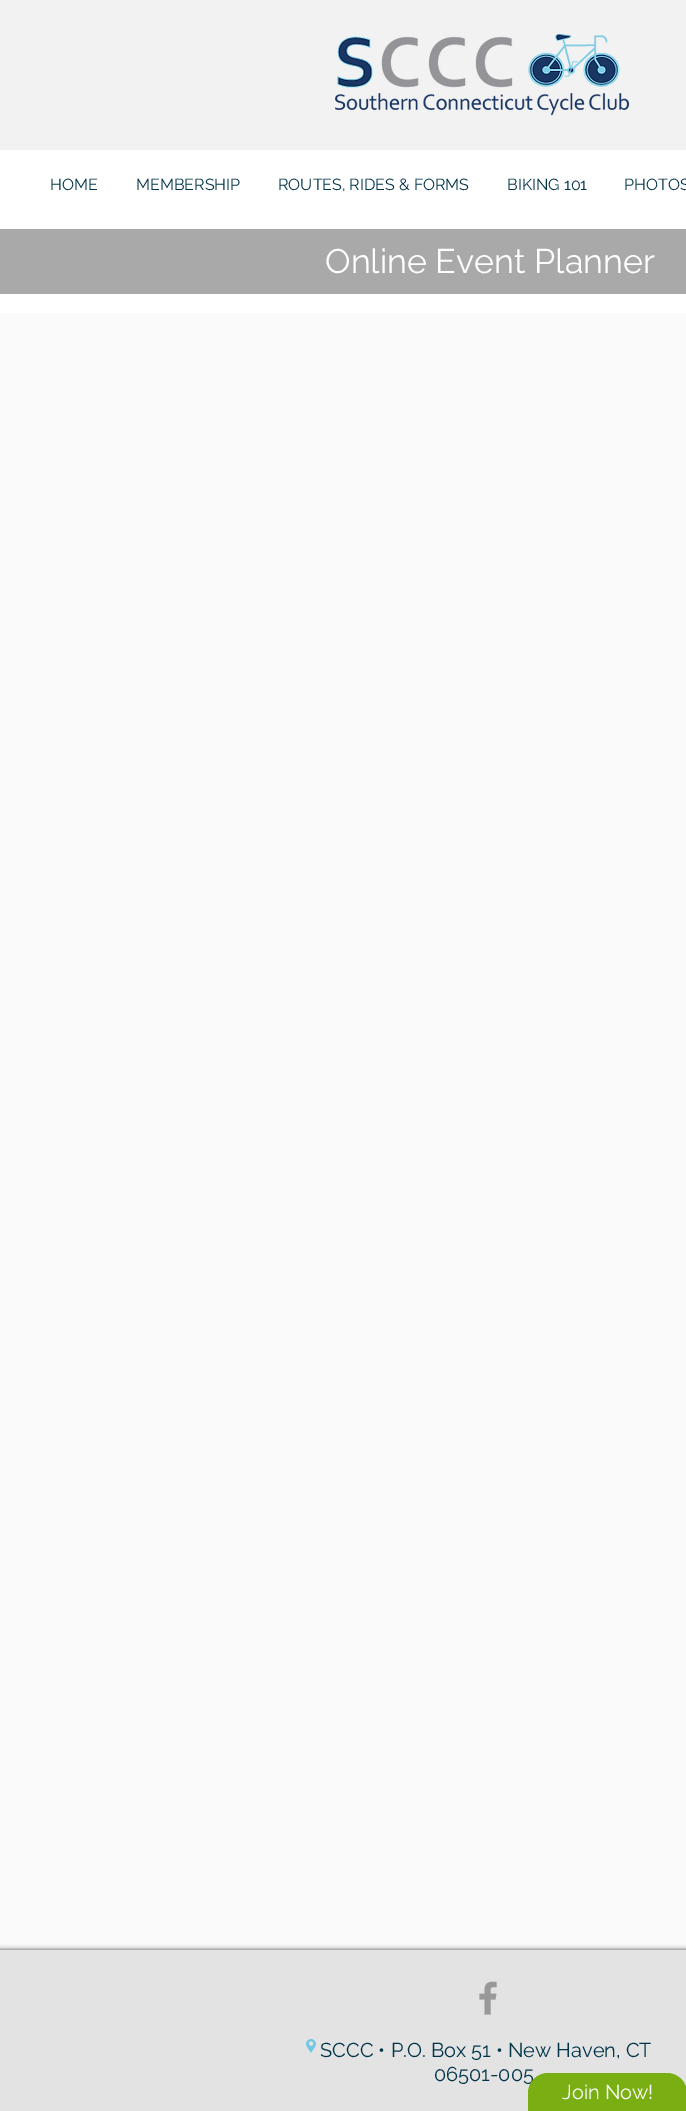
%!PS-Adobe-3.0
%%BoundingBox: 0 0 686 2111
%%LanguageLevel: 3
%%Pages: 1
%%EndComments
%%BeginProlog
/setink { 3 { 255 div 3 1 roll } repeat setrgbcolor } def
/usefont { [ exch dup neg 0 0 3 -1 roll 0 0 ] selectfont } def
/drawtext { setink usefont moveto show } def
/fillbox { setink rectfill } def
/setalpha { dup .setfillconstantalpha .setstrokeconstantalpha } def
/rrect { 5 dict begin { /r /h /w /y /x } { exch def } forall
  x r add y moveto x w add y 2 copy h add r arct x w add y h add x 1 index r arct
  x y h add x y r arct x y 2 copy exch w add exch r arct closepath end } def
/softshadow { 12 dict begin { /a /b /q /h /w /y /x } { exch def } forall gsave /was 0 def
  9 -2 -9 { dup b mul 4 div /e exch def 1 sub .425 mul 2.718 exch exp 1 add a .99 .min exch div /now exch def
    1 1 now sub 1 was sub div sub setalpha /was now def
    w h .min e 2 mul add 0 gt { x e sub y e sub w e 2 mul add h e 2 mul add
      q e add b .6 mul add w h .min 2 div e add .min 0 .max rrect fill } if } for grestore end } def
/drawimage { 5 dict begin { /h /w /y /x /name } { exch def } forall
  gsave x y translate w h scale
  w h 8 [w 0 0 h 0 0] name (r) file false 3 colorimage grestore end } def
%%EndProlog
%%BeginSetup
<< /PageSize [686 2111] /PageUsesTransparency true >> setpagedevice
%%EndSetup
%%Page: 1 1
0 .pushpdf14devicefilter
0 2111 translate 1 -1 scale
4 setmiterlimit
0 0 686 2111 255 255 255 fillbox
0 0 686 150 242 242 242 fillbox
(assets/img1.rgb) 335 33 294 83 drawimage
(HOME) 50 190 /Raleway-Regular 16 0 52 72 drawtext
(MEMBERSHIP) 136 190 /Raleway-Regular 16 0 52 72 drawtext
(ROUTES, RIDES & FORMS) 278 190 /Raleway-Regular 16 0 52 72 drawtext
(BIKING 101) 507 190 /Raleway-Regular 16 0 52 72 drawtext
(PHOTOS) 624 190 /Raleway-Regular 16 0 52 72 drawtext
0 229 686 65 169 169 169 fillbox
(Online Event Planner) 325 273 /Raleway-Regular 34 255 255 255 drawtext
0 313 686 1637 250 250 250 fillbox
0 0 0 setink
0 1950 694 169 0 2.5 0.7 softshadow
0 1950 686 161 227 227 227 fillbox
(assets/img2.rgb) 479 1981 18 34 drawimage
(assets/img3.rgb) 306 2039 10 14 drawimage
(SCCC • P.O. Box 51 • New Haven, CT) 320 2057 /Raleway-Regular 20 0 52 72 drawtext
(06501-005) 434 2081 /Raleway-Regular 20 0 52 72 drawtext
121 175 19 setink
548 2073 moveto 667 2073 lineto 678 2073 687 2082 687 2093 curveto 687 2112 lineto 528 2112 lineto 528 2093 lineto 528 2082 537 2073 548 2073 curveto closepath fill
(Join Now!) 562 2099 /Raleway-Regular 20 255 255 255 drawtext
.poppdf14devicefilter showpage
%%EOF
